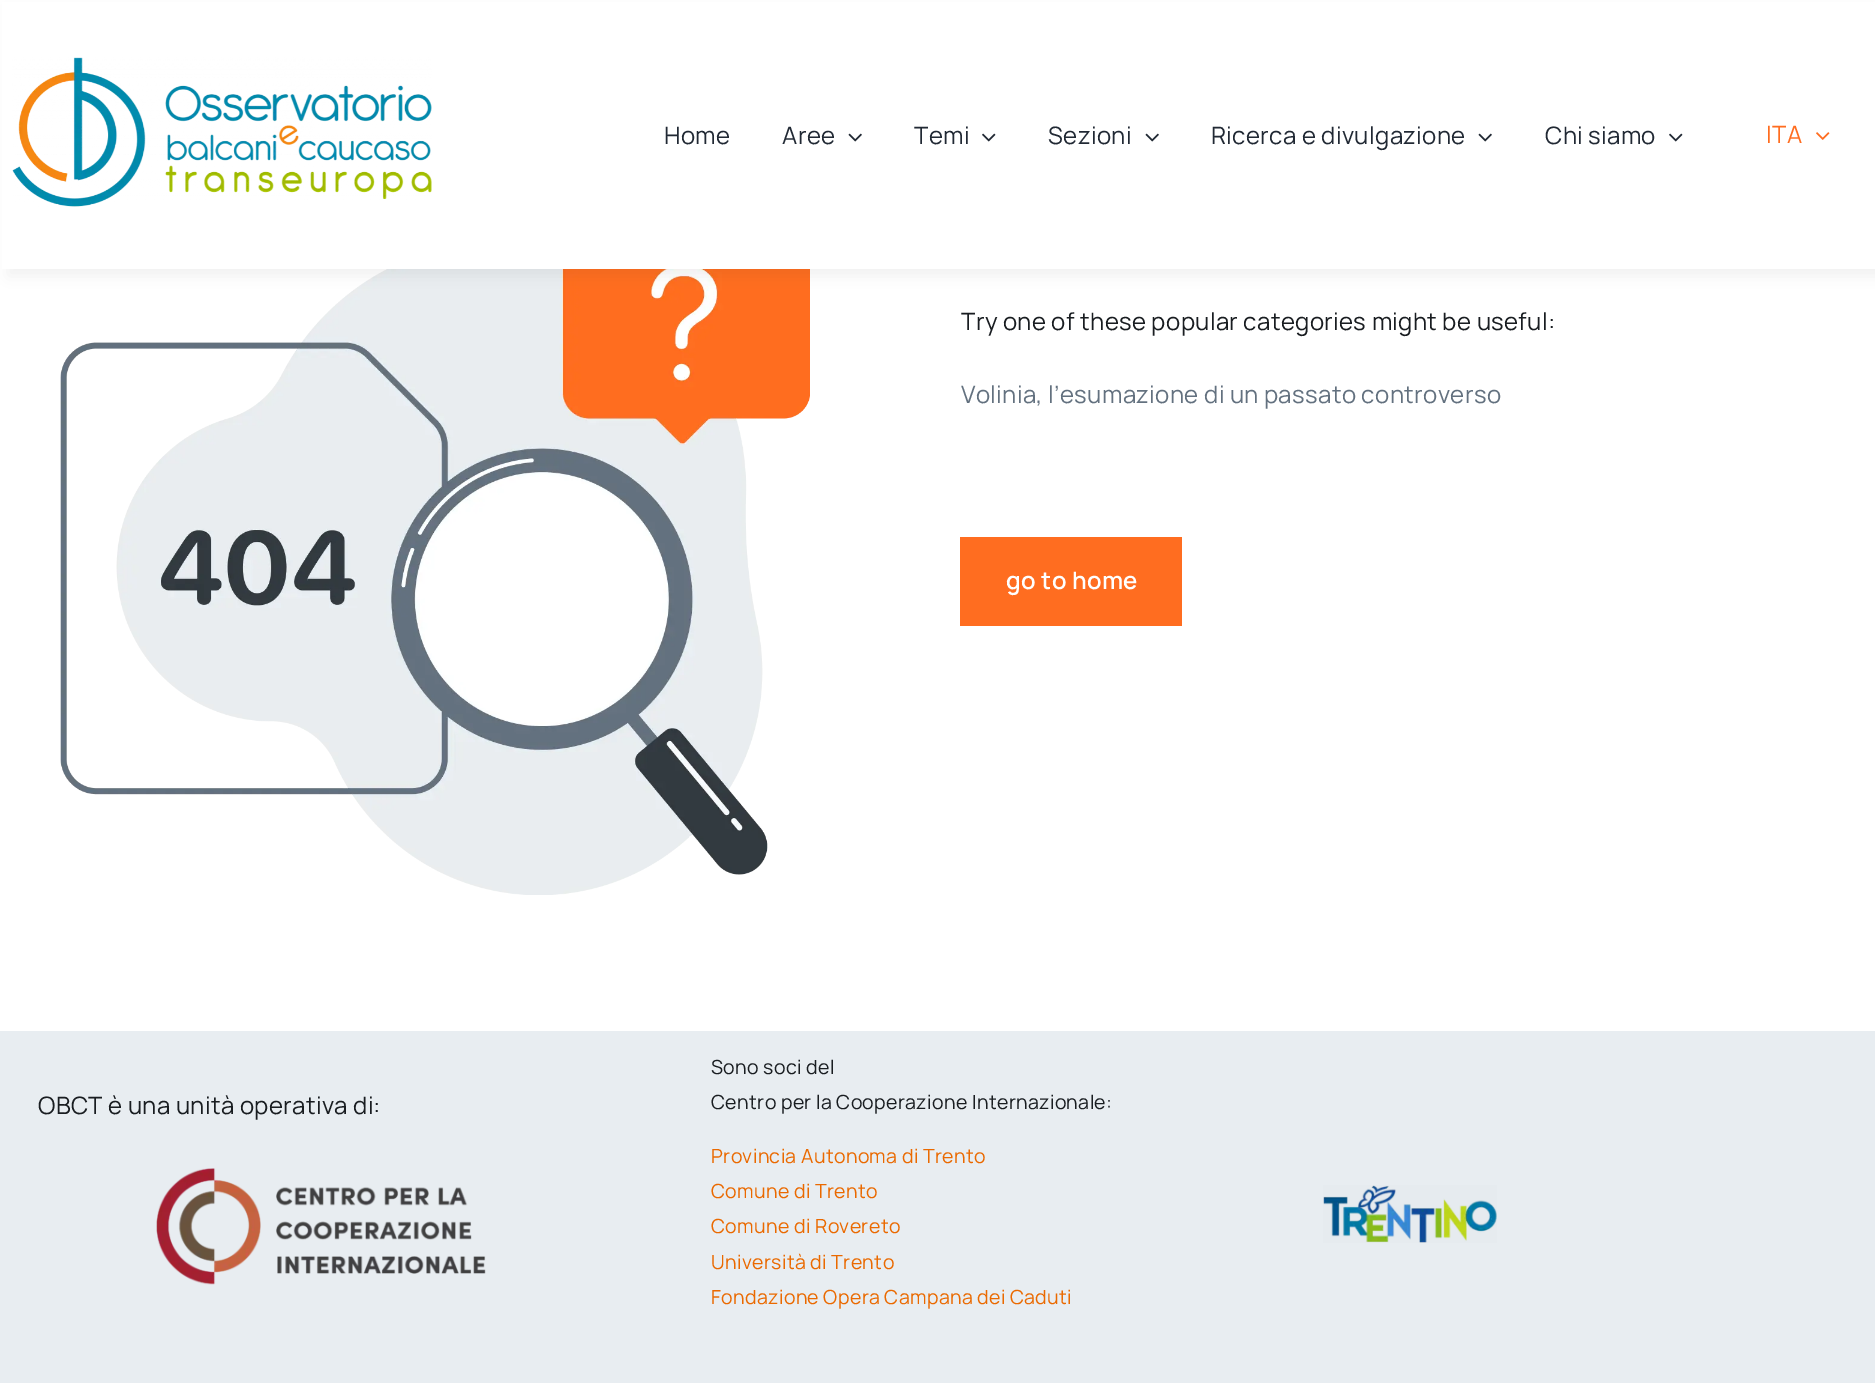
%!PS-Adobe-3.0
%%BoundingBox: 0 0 1875 1383
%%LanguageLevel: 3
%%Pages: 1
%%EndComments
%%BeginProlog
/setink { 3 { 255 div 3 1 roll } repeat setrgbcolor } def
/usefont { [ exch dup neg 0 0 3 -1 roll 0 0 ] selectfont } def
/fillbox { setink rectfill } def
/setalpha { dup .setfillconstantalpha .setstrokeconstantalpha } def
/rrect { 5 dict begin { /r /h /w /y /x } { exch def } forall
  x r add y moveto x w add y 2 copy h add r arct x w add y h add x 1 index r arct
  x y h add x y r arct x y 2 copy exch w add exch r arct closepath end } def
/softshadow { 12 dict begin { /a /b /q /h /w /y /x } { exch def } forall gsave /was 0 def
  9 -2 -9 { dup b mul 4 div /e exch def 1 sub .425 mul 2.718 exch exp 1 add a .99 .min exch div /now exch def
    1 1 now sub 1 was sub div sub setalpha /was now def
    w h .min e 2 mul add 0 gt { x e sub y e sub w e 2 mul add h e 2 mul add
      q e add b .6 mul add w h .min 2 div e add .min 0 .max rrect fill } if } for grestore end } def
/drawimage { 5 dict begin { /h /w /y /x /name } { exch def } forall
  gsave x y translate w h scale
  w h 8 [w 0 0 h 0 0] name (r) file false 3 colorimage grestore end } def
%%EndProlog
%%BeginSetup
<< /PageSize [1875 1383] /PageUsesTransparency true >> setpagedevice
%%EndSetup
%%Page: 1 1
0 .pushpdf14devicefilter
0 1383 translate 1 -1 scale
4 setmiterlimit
0 0 1875 1383 255 255 255 fillbox
(assets/img5.rgb) 60 269 750 626 drawimage
2 3 3 setink
8 8 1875 268 0 7.5 0.05 softshadow
2 2 1873 267 255 255 255 fillbox
(assets/img1.rgb) 12 57 420 150 drawimage
/Manrope-Regular 24 usefont
33 41 52 setink
664 144 moveto 0.35 0 (Home) ashow
782 144 moveto 0.35 0 (Aree) ashow
(assets/img2.rgb) 848 133 14 9 drawimage
914 144 moveto 0.35 0 (Temi) ashow
(assets/img3.rgb) 982 133 14 9 drawimage
1048 144 moveto 0.35 0 (Sezioni) ashow
(assets/img2.rgb) 1145 133 14 9 drawimage
1211 144 moveto 0.35 0 (Ricerca e divulgazione) ashow
(assets/img2.rgb) 1478 133 14 9 drawimage
1545 144 moveto 0.35 0 (Chi siamo) ashow
(assets/img3.rgb) 1669 133 14 9 drawimage
255 109 32 setink
1766 143 moveto 0.35 0 (ITA) ashow
(assets/img4.rgb) 1816 132 14 8 drawimage
25 29 33 setink
961 330 moveto 0.35 0 (Try one of these popular categories might be useful:) ashow
99 113 127 setink
961 403 moveto 0.35 0 (Volinia, l’esumazione di un passato controverso) ashow
960 537 222 89 255 109 32 fillbox
/Manrope-SemiBold 24 usefont
255 255 255 setink
1006 589 moveto 0.35 0 (go to home) ashow
0 1031 1875 352 232 237 241 fillbox
/Manrope-Regular 24 usefont
25 29 33 setink
38 1114 moveto 0.35 0 (OBCT è una unità operativa di:) ashow
(assets/img6.rgb) 156 1168 330 117 drawimage
/Manrope-Regular 19.5 usefont
711 1074 moveto 0.35 0 (Sono soci del) ashow
711 1109 moveto 0.35 0 (Centro per la Cooperazione Internazionale:) ashow
234 105 0 setink
711 1163 moveto 0.35 0 (Provincia Autonoma di Trento) ashow
711 1198 moveto 0.35 0 (Comune di Trento) ashow
711 1233 moveto 0.35 0 (Comune di Rovereto) ashow
711 1269 moveto 0.35 0 (Università di Trento) ashow
711 1304 moveto 0.35 0 (Fondazione Opera Campana dei Caduti) ashow
(assets/img7.rgb) 1323 1185 174 58 drawimage
.poppdf14devicefilter showpage
%%EOF
